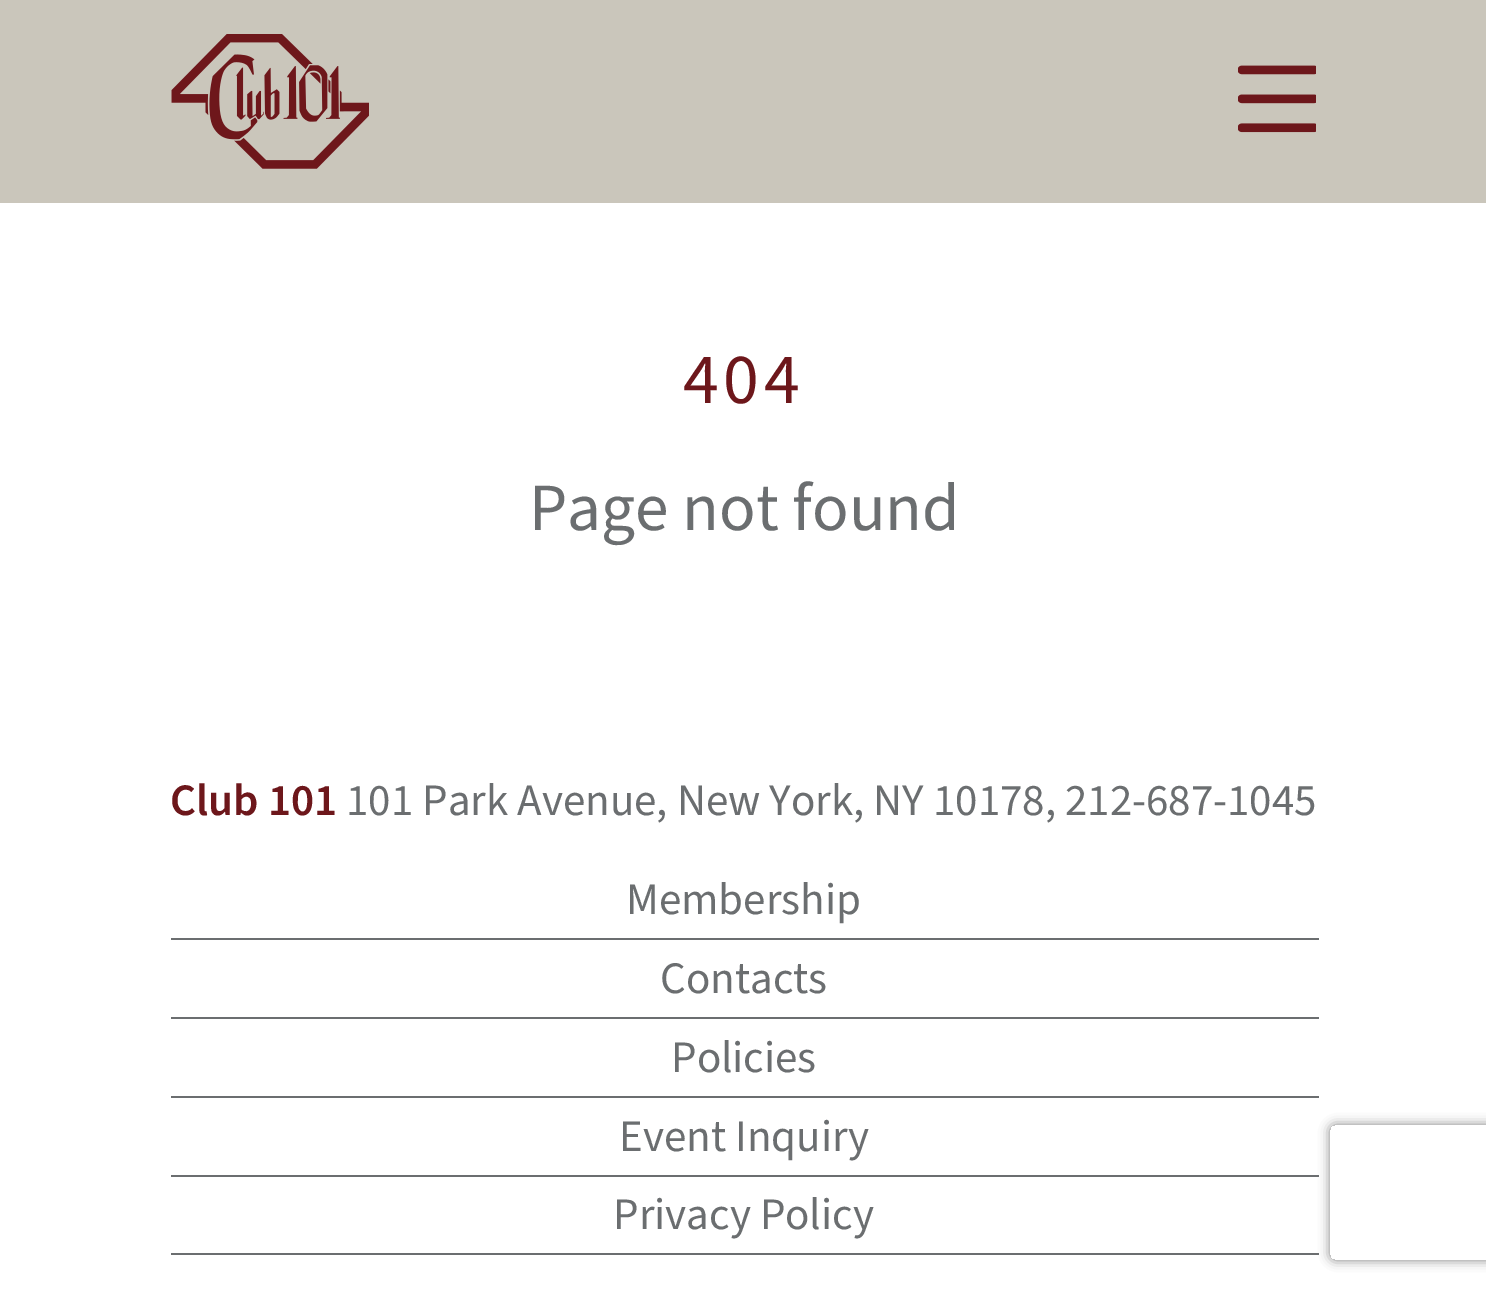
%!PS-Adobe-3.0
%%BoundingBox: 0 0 1486 1291
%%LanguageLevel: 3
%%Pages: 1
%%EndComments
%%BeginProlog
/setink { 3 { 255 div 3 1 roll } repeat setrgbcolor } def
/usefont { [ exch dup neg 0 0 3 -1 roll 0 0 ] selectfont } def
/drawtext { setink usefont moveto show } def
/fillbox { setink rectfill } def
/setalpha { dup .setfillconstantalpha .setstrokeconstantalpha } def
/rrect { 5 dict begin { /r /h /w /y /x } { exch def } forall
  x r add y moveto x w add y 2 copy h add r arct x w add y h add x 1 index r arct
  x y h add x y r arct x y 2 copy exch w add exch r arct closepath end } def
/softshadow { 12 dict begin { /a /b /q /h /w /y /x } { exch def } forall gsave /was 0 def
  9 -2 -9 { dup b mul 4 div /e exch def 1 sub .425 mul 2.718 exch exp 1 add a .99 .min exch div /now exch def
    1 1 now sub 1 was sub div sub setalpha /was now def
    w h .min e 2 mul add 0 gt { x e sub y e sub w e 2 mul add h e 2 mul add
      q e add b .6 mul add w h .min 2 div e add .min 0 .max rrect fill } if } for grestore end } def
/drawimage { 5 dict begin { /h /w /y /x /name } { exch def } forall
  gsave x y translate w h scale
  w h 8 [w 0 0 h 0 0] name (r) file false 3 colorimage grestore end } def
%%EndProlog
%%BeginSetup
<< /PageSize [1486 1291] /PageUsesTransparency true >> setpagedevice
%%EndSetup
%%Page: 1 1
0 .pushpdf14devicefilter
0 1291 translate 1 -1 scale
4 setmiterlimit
0 0 1486 1291 255 255 255 fillbox
0 0 1486 203 202 198 187 fillbox
(assets/img1.rgb) 171 34 198 135 drawimage
(assets/img2.rgb) 1238 65 78 68 drawimage
/SourceSansPro-Regular 72 usefont
109 23 27 setink
683 403 moveto 4.5 0 (404) ashow
(Page not found) 529 530 /SourceSansPro-Regular 67.5 107 110 112 drawtext
(Club 101) 170 815 /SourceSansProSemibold-SemiBold 45 109 23 27 drawtext
(101 Park Avenue, New York, NY 10178, 212-687-1045) 346 815 /SourceSansPro-Regular 45 107 110 112 drawtext
171 938 1148 2 107 110 112 fillbox
(Membership) 626 914 /SourceSansPro-Regular 45 107 110 112 drawtext
171 1017 1148 2 107 110 112 fillbox
(Contacts) 660 993 /SourceSansPro-Regular 45 107 110 112 drawtext
171 1096 1148 2 107 110 112 fillbox
(Policies) 671 1072 /SourceSansPro-Regular 45 107 110 112 drawtext
171 1175 1148 2 107 110 112 fillbox
(Event Inquiry) 619 1151 /SourceSansPro-Regular 45 107 110 112 drawtext
171 1253 1148 2 107 110 112 fillbox
(Privacy Policy) 613 1229 /SourceSansPro-Regular 45 107 110 112 drawtext
gsave
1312 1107 moveto 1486 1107 lineto 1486 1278 lineto 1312 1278 lineto closepath 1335 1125 moveto 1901 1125 lineto 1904 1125 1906 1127 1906 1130 curveto 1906 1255 lineto 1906 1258 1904 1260 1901 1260 curveto 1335 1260 lineto 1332 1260 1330 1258 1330 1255 curveto 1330 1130 lineto 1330 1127 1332 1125 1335 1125 curveto closepath eoclip newpath
128 128 128 setink
1330 1125 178 135 5 5.5 1 softshadow
grestore
.poppdf14devicefilter showpage
%%EOF
